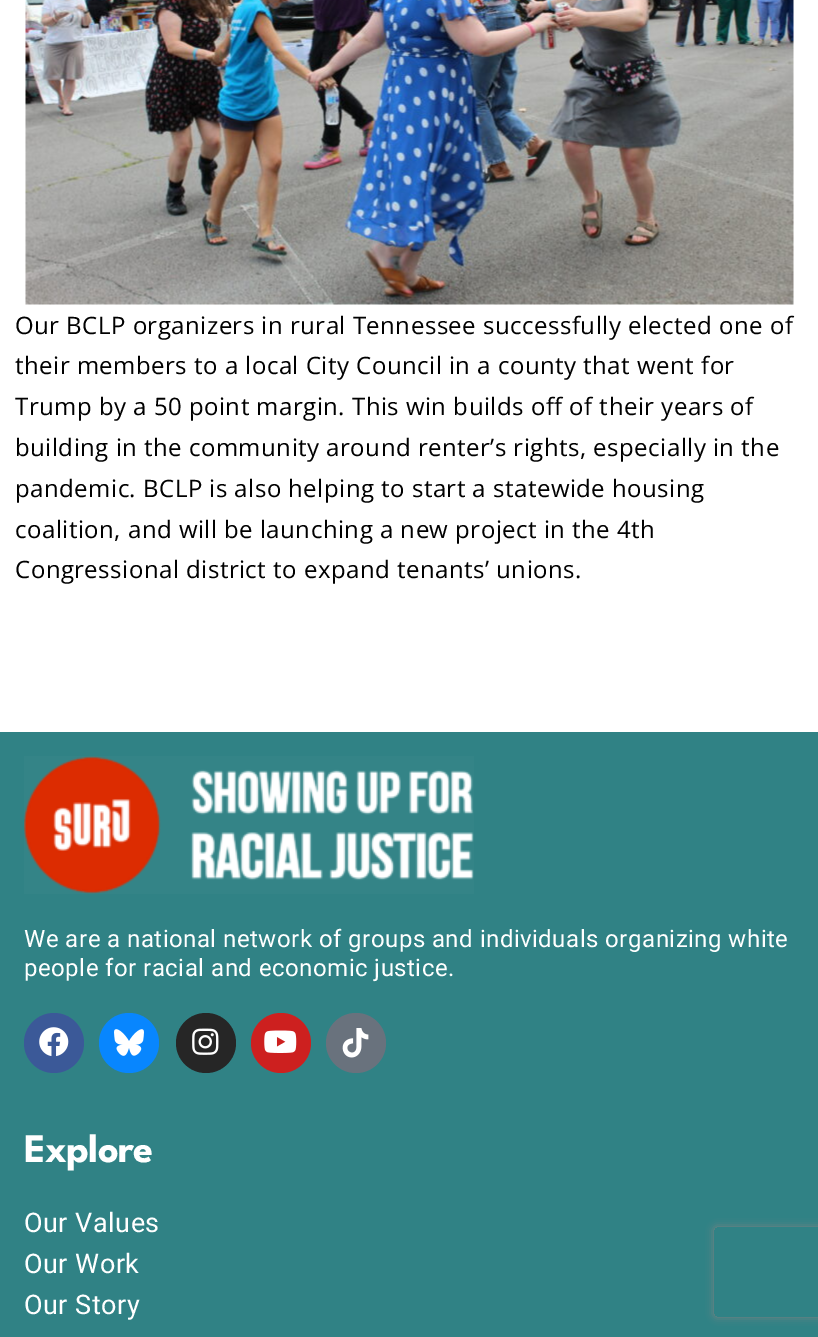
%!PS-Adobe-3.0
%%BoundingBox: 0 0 818 1337
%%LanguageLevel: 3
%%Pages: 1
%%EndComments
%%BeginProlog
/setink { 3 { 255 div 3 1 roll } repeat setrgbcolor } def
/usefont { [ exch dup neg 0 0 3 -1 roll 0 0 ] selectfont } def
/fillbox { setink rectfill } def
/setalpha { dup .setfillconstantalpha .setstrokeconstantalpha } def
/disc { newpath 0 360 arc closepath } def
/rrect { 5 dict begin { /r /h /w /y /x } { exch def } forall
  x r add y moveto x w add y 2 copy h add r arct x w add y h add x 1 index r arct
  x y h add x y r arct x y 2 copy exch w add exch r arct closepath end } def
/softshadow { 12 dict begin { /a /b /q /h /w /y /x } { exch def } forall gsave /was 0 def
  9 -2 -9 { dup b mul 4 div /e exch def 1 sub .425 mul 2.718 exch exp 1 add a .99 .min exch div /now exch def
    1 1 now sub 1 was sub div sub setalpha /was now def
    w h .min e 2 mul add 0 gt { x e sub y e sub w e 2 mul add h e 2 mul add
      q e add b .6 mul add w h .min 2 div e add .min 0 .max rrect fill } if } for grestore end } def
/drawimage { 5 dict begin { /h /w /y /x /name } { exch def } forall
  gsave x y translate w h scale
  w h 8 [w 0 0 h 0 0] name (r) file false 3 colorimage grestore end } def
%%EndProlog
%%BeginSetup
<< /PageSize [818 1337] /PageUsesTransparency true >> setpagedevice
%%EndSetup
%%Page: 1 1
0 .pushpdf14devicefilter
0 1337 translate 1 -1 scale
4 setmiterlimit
0 0 818 1337 255 255 255 fillbox
(assets/img1.rgb) 25 0 769 305 drawimage
/OpenSans-Regular 24 usefont
0 0 0 setink
15 334 moveto 0.48 0 (Our BCLP organizers in rural Tennessee successfully elected one of) ashow
15 374 moveto 0.48 0 (their members to a local City Council in a county that went for) ashow
15 415 moveto 0.48 0 (Trump by a 50 point margin. This win builds off of their years of) ashow
15 456 moveto 0.48 0 (building in the community around renter’s rights, especially in the) ashow
15 497 moveto 0.48 0 (pandemic. BCLP is also helping to start a statewide housing) ashow
15 538 moveto 0.48 0 (coalition, and will be launching a new project in the 4th) ashow
15 578 moveto 0.48 0 (Congressional district to expand tenants’ unions.) ashow
0 732 818 605 48 130 133 fillbox
(assets/img2.rgb) 24 756 450 138 drawimage
/Roboto-Regular 24 usefont
255 255 255 setink
24 947 moveto 0.48 0 (We are a national network of groups and individuals organizing white) ashow
24 976 moveto 0.48 0 (people for racial and economic justice.) ashow
59 89 152 setink
54 1043 30 disc fill
(assets/img3.rgb) 39 1027 30 30 drawimage
8 134 254 setink
129 1043 30 disc fill
(assets/img4.rgb) 114 1029 30 27 drawimage
38 38 38 setink
206 1043 30 disc fill
(assets/img5.rgb) 192 1028 27 27 drawimage
205 32 31 setink
281 1043 30 disc fill
(assets/img6.rgb) 264 1030 33 23 drawimage
105 114 125 setink
356 1043 30 disc fill
(assets/img7.rgb) 342 1028 27 30 drawimage
/LeagueSpartan-Bold 40.5 usefont
255 255 255 setink
24 1162 moveto -0.75 0 (Explore) ashow
/Roboto-Regular 27 usefont
24 1232 moveto 0.5 0 (Our Values) ashow
24 1273 moveto 0.5 0 (Our Work) ashow
24 1314 moveto 0.5 0 (Our Story) ashow
gsave
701 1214 moveto 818 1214 lineto 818 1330 lineto 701 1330 lineto closepath 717 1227 moveto 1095 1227 lineto 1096.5 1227 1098 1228.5 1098 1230 curveto 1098 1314 lineto 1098 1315.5 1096.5 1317 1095 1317 curveto 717 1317 lineto 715.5 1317 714 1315.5 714 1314 curveto 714 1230 lineto 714 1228.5 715.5 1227 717 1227 curveto closepath eoclip newpath
128 128 128 setink
714 1227 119 90 3 4 1 softshadow
grestore
.poppdf14devicefilter showpage
%%EOF
